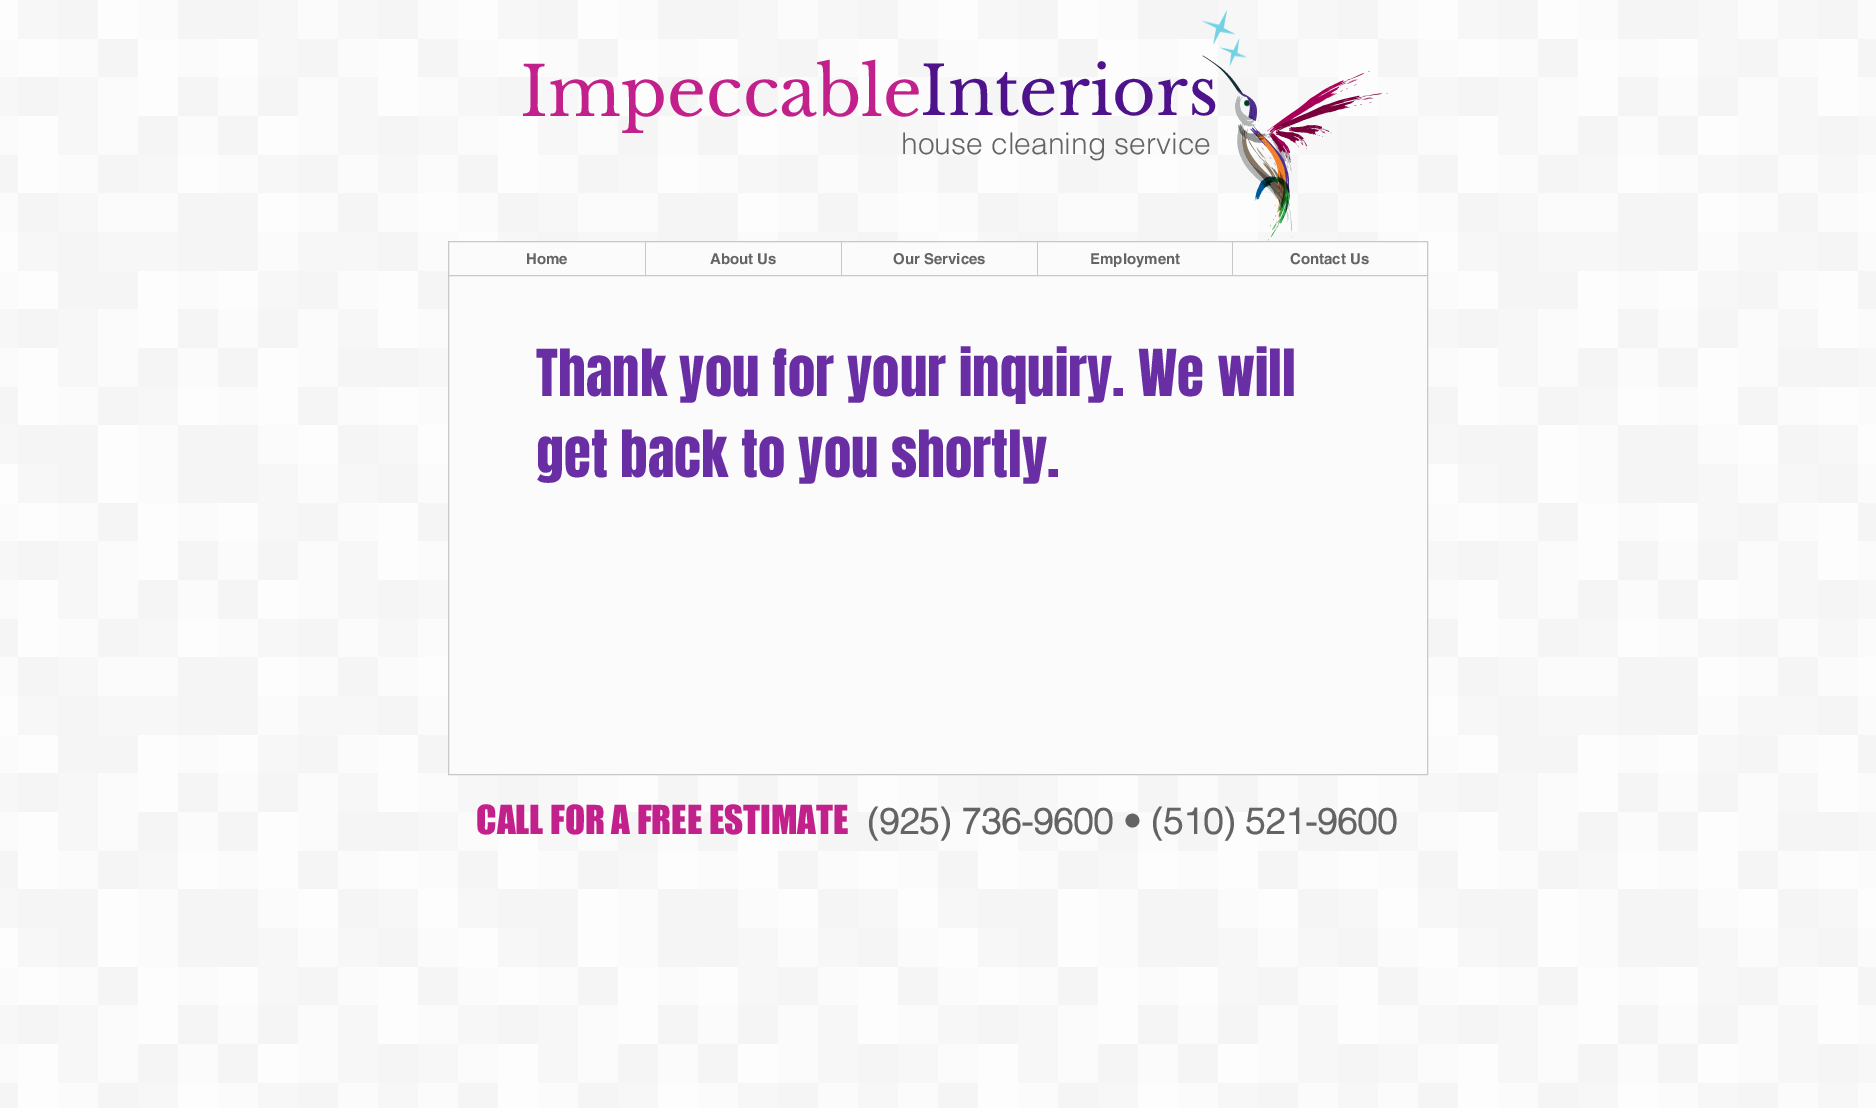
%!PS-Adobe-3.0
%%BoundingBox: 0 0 1876 1108
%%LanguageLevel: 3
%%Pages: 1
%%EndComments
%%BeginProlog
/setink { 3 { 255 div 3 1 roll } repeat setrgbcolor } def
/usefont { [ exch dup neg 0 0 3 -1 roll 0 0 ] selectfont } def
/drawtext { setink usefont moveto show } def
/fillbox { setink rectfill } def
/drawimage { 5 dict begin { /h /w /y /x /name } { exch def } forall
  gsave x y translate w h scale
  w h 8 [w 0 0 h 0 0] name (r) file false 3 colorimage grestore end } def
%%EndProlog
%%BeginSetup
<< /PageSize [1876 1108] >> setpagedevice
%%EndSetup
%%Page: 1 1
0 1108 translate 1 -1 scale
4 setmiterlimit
0 0 1876 1108 251 251 251 fillbox
(assets/img1.rgb) 0 0 1876 1108 drawimage
(assets/img2.rgb) 1202 10 45 56 drawimage
(Impeccable) 520 116 /LibreBaskerville-Regular 68 194 33 140 drawtext
(assets/img3.rgb) 1202 55 186 186 drawimage
(Interiors) 920 115 /LibreBaskerville-Regular 67 78 18 138 drawtext
(house cleaning service) 901 154 /helvetica-Light 30 100 100 100 drawtext
449 242 969 33 251 251 251 fillbox
200 200 200 setink
448.5 241.5 979 34 rectstroke
(Home) 526 264 /helvetica-Bold 15 100 100 100 drawtext
645 242 1 33 200 200 200 fillbox
(About Us) 710 264 /helvetica-Bold 15 100 100 100 drawtext
841 242 1 33 200 200 200 fillbox
(Our Services) 893 264 /helvetica-Bold 15 100 100 100 drawtext
1037 242 1 33 200 200 200 fillbox
(Employment) 1090 264 /helvetica-Bold 15 100 100 100 drawtext
1232 242 1 33 200 200 200 fillbox
(Contact Us) 1290 264 /helvetica-Bold 15 100 100 100 drawtext
251 251 251 setink
448.5 275.5 moveto 1427.5 275.5 lineto 1427.5 774.5 lineto 448.5 774.5 lineto closepath gsave fill grestore
200 200 200 setink
stroke
(Thank you for your inquiry. We will) 536 396 /Anton-Regular 55 105 46 164 drawtext
(get back to you shortly.) 536 477 /Anton-Regular 55 105 46 164 drawtext
(CALL FOR A FREE ESTIMATE) 476 834 /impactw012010-Regular 37 194 33 140 drawtext
(\(925\) 736-9600 • \(510\) 521-9600) 867 834 /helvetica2-Bold 36 100 100 100 drawtext
showpage
%%EOF
